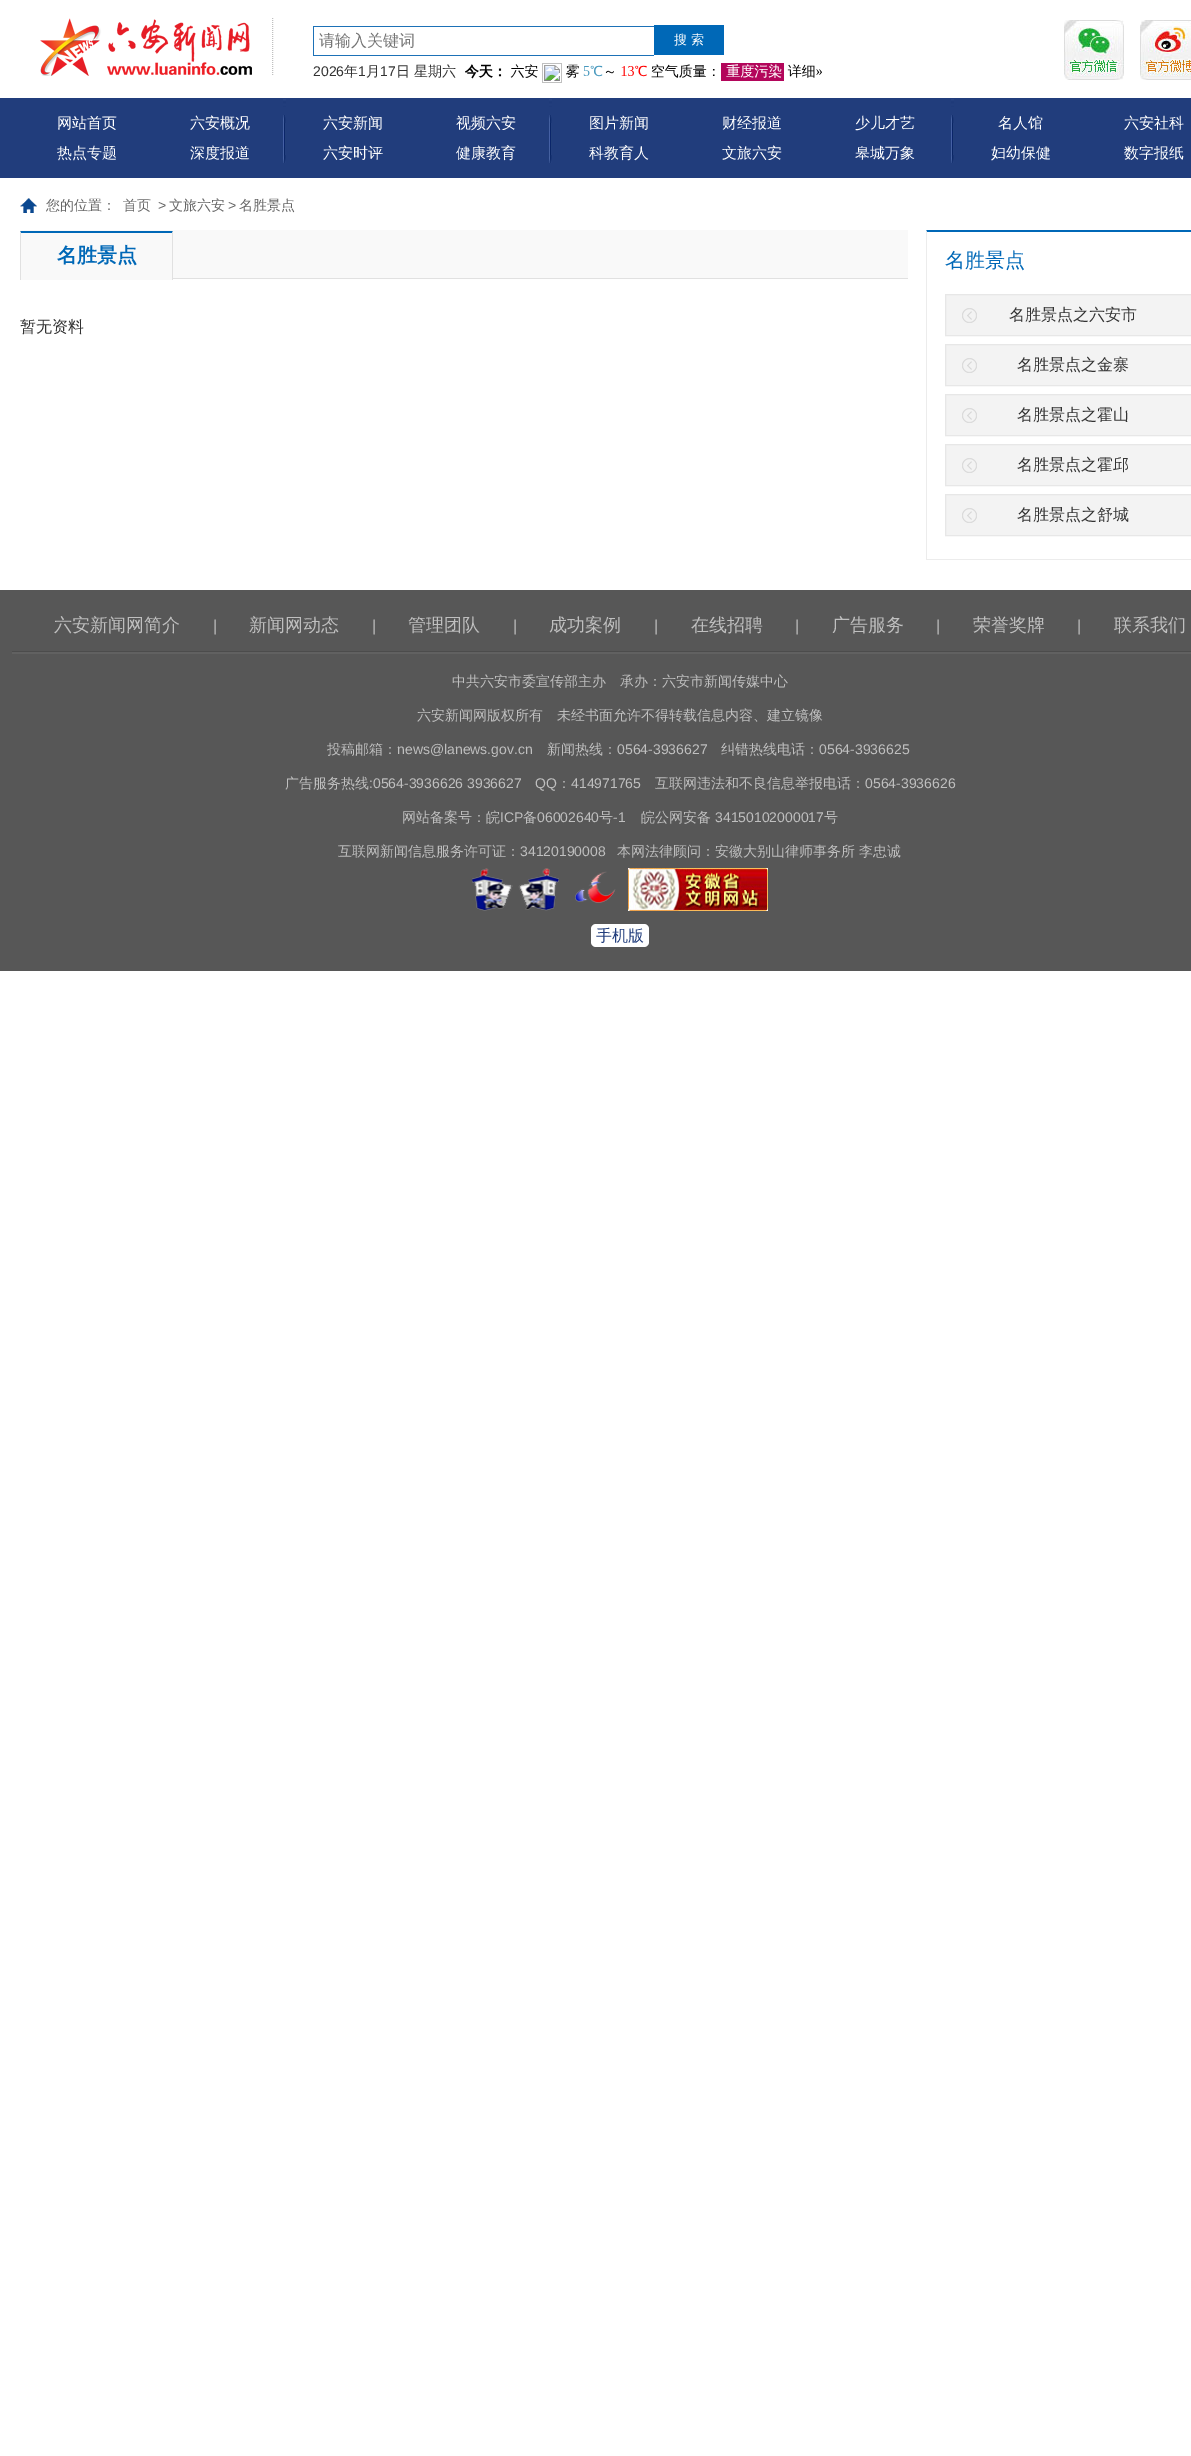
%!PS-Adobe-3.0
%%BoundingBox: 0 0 1191 2456
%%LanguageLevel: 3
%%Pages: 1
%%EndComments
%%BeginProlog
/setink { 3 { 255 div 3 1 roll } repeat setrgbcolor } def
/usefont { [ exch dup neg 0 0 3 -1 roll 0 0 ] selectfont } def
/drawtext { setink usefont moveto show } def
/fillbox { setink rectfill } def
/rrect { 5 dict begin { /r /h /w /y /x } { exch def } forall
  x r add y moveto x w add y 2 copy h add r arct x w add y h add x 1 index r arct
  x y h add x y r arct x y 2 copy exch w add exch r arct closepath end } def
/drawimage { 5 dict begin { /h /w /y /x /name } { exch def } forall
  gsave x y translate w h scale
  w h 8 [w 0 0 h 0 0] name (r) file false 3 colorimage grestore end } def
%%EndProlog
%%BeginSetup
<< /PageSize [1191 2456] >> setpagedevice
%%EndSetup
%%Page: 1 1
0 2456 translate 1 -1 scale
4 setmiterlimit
0 0 1191 2456 255 255 255 fillbox
192 192 192 setink
[1 1] 0 setdash
272.5 18 moveto 272.5 76 lineto stroke
(assets/img1.rgb) 40 18 212 58 drawimage
313 26 341 1 29 113 183 fillbox
313 55 341 1 29 113 183 fillbox
313 26 1 30 29 113 183 fillbox
(请输入关键词) 319 46 /WenQuanYiZenHei-Medium 16 117 117 117 drawtext
654 25 70 30 0 104 183 fillbox
(搜 索) 674 44 /WenQuanYiZenHei-Medium 13 255 255 255 drawtext
(2026) 313 76 /LiberationSans-Regular 14 51 51 51 drawtext
(年) 344 76 /WenQuanYiZenHei-Medium 14 51 51 51 drawtext
(1) 358 76 /LiberationSans-Regular 14 51 51 51 drawtext
(月) 366 76 /WenQuanYiZenHei-Medium 14 51 51 51 drawtext
(17) 380 76 /LiberationSans-Regular 14 51 51 51 drawtext
(日 星期六) 396 76 /WenQuanYiZenHei-Medium 14 51 51 51 drawtext
(assets/img2.rgb) 465 63 357 20 drawimage
(assets/img3.rgb) 1064 20 60 60 drawimage
(assets/img4.rgb) 1140 20 51 60 drawimage
0 98 1191 80 33 61 124 fillbox
(assets/img5.rgb) 283 99 3 64 drawimage
(网站首页) 57 128 /WenQuanYiZenHei-Medium 15 255 255 255 drawtext
(六安概况) 190 128 /WenQuanYiZenHei-Medium 15 255 255 255 drawtext
(热点专题) 57 158 /WenQuanYiZenHei-Medium 15 255 255 255 drawtext
(深度报道) 190 158 /WenQuanYiZenHei-Medium 15 255 255 255 drawtext
(assets/img5.rgb) 549 99 3 64 drawimage
(六安新闻) 323 128 /WenQuanYiZenHei-Medium 15 255 255 255 drawtext
(视频六安) 456 128 /WenQuanYiZenHei-Medium 15 255 255 255 drawtext
(六安时评) 323 158 /WenQuanYiZenHei-Medium 15 255 255 255 drawtext
(健康教育) 456 158 /WenQuanYiZenHei-Medium 15 255 255 255 drawtext
(assets/img5.rgb) 951 99 3 64 drawimage
(图片新闻) 589 128 /WenQuanYiZenHei-Medium 15 255 255 255 drawtext
(财经报道) 722 128 /WenQuanYiZenHei-Medium 15 255 255 255 drawtext
(少儿才艺) 855 128 /WenQuanYiZenHei-Medium 15 255 255 255 drawtext
(科教育人) 589 158 /WenQuanYiZenHei-Medium 15 255 255 255 drawtext
(文旅六安) 722 158 /WenQuanYiZenHei-Medium 15 255 255 255 drawtext
(皋城万象) 855 158 /WenQuanYiZenHei-Medium 15 255 255 255 drawtext
(名人馆) 998 128 /WenQuanYiZenHei-Medium 15 255 255 255 drawtext
(六安社科) 1124 128 /WenQuanYiZenHei-Medium 15 255 255 255 drawtext
(妇幼保健) 991 158 /WenQuanYiZenHei-Medium 15 255 255 255 drawtext
(数字报纸) 1124 158 /WenQuanYiZenHei-Medium 15 255 255 255 drawtext
(assets/img6.rgb) 20 198 17 15 drawimage
(您的位置：) 46 210 /WenQuanYiZenHei-Medium 14 102 102 102 drawtext
(首页) 123 210 /WenQuanYiZenHei-Medium 14 102 102 102 drawtext
(>) 158 210 /LiberationSans-Regular 14 102 102 102 drawtext
(文旅六安) 169 210 /WenQuanYiZenHei-Medium 14 102 102 102 drawtext
(>) 228 210 /LiberationSans-Regular 14 102 102 102 drawtext
(名胜景点) 239 210 /WenQuanYiZenHei-Medium 14 102 102 102 drawtext
20 230 888 48 249 249 249 fillbox
173 278 735 1 225 225 225 fillbox
20 278 153 2 249 249 249 fillbox
0 104 183 setink
20 231 moveto 173 231 lineto 172 233 lineto 21 233 lineto closepath fill
225 225 225 setink
173 231 moveto 173 280 lineto 172 280 lineto 172 233 lineto closepath fill
20 280 moveto 20 231 lineto 21 233 lineto 21 280 lineto closepath fill
(名胜景点) 57 262 /WenQuanYiZenHei-Bold 20 0 104 183 drawtext
(暂无资料) 20 332 /WenQuanYiZenHei-Medium 16 51 51 51 drawtext
0 104 183 setink
926 230 moveto 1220 230 lineto 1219 232 lineto 927 232 lineto closepath fill
926 559 265 1 236 236 236 fillbox
926 560 moveto 926 230 lineto 927 232 lineto 927 559 lineto closepath fill
(名胜景点) 945 267 /WenQuanYiZenHei-Medium 20 0 104 183 drawtext
946 295 245 40 243 243 243 fillbox
(assets/img7.rgb) 962 308 15 15 drawimage
231 231 231 setink
[] 0 setdash
945.5 294.5 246 41 rectstroke
(名胜景点之六安市) 1009 320 /WenQuanYiZenHei-Medium 16 51 51 51 drawtext
946 345 245 40 243 243 243 fillbox
(assets/img7.rgb) 962 358 15 15 drawimage
231 231 231 setink
945.5 344.5 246 41 rectstroke
(名胜景点之金寨) 1017 370 /WenQuanYiZenHei-Medium 16 51 51 51 drawtext
946 395 245 40 243 243 243 fillbox
(assets/img7.rgb) 962 408 15 15 drawimage
231 231 231 setink
945.5 394.5 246 41 rectstroke
(名胜景点之霍山) 1017 420 /WenQuanYiZenHei-Medium 16 51 51 51 drawtext
946 445 245 40 243 243 243 fillbox
(assets/img7.rgb) 962 458 15 15 drawimage
231 231 231 setink
945.5 444.5 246 41 rectstroke
(名胜景点之霍邱) 1017 470 /WenQuanYiZenHei-Medium 16 51 51 51 drawtext
946 495 245 40 243 243 243 fillbox
(assets/img7.rgb) 962 508 15 15 drawimage
231 231 231 setink
945.5 494.5 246 41 rectstroke
(名胜景点之舒城) 1017 520 /WenQuanYiZenHei-Medium 16 51 51 51 drawtext
0 590 1191 381 87 87 87 fillbox
12 651 1179 1 76 76 76 fillbox
(六安新闻网简介) 54 631 /WenQuanYiZenHei-Medium 18 191 191 191 drawtext
(|) 213 631 /LiberationSans-Regular 16 191 191 191 drawtext
(新闻网动态) 249 631 /WenQuanYiZenHei-Medium 18 191 191 191 drawtext
(|) 372 631 /LiberationSans-Regular 16 191 191 191 drawtext
(管理团队) 408 631 /WenQuanYiZenHei-Medium 18 191 191 191 drawtext
(|) 513 631 /LiberationSans-Regular 16 191 191 191 drawtext
(成功案例) 549 631 /WenQuanYiZenHei-Medium 18 191 191 191 drawtext
(|) 654 631 /LiberationSans-Regular 16 191 191 191 drawtext
(在线招聘) 691 631 /WenQuanYiZenHei-Medium 18 191 191 191 drawtext
(|) 795 631 /LiberationSans-Regular 16 191 191 191 drawtext
(广告服务) 832 631 /WenQuanYiZenHei-Medium 18 191 191 191 drawtext
(|) 936 631 /LiberationSans-Regular 16 191 191 191 drawtext
(荣誉奖牌) 973 631 /WenQuanYiZenHei-Medium 18 191 191 191 drawtext
(|) 1077 631 /LiberationSans-Regular 16 191 191 191 drawtext
(联系我们) 1114 631 /WenQuanYiZenHei-Medium 18 191 191 191 drawtext
12 652 1179 2 97 97 97 fillbox
(中共六安市委宣传部主办) 452 686 /WenQuanYiZenHei-Medium 14 191 191 191 drawtext
(承办：六安市新闻传媒中心) 620 686 /WenQuanYiZenHei-Medium 14 191 191 191 drawtext
(六安新闻网版权所有) 417 720 /WenQuanYiZenHei-Medium 14 191 191 191 drawtext
(未经书面允许不得转载信息内容、建立镜像) 557 720 /WenQuanYiZenHei-Medium 14 191 191 191 drawtext
(投稿邮箱：) 327 754 /WenQuanYiZenHei-Medium 14 191 191 191 drawtext
(news@lanews.gov.cn) 397 754 /LiberationSans-Regular 14 191 191 191 drawtext
(新闻热线：) 547 754 /WenQuanYiZenHei-Medium 14 191 191 191 drawtext
(0564-3936627) 617 754 /LiberationSans-Regular 14 191 191 191 drawtext
(纠错热线电话：) 721 754 /WenQuanYiZenHei-Medium 14 191 191 191 drawtext
(0564-3936625) 819 754 /LiberationSans-Regular 14 191 191 191 drawtext
(广告服务热线) 285 788 /WenQuanYiZenHei-Medium 14 191 191 191 drawtext
(:0564-3936626 3936627) 369 788 /LiberationSans-Regular 14 191 191 191 drawtext
(QQ) 535 788 /LiberationSans-Regular 14 191 191 191 drawtext
(：) 557 788 /WenQuanYiZenHei-Medium 14 191 191 191 drawtext
(414971765) 571 788 /LiberationSans-Regular 14 191 191 191 drawtext
(互联网违法和不良信息举报电话：) 655 788 /WenQuanYiZenHei-Medium 14 191 191 191 drawtext
(0564-3936626) 865 788 /LiberationSans-Regular 14 191 191 191 drawtext
(网站备案号：皖) 402 822 /WenQuanYiZenHei-Medium 14 191 191 191 drawtext
(ICP) 500 822 /LiberationSans-Regular 14 191 191 191 drawtext
(备) 523 822 /WenQuanYiZenHei-Medium 14 191 191 191 drawtext
(06002640) 537 822 /LiberationSans-Regular 14 191 191 191 drawtext
(号) 599 822 /WenQuanYiZenHei-Medium 14 191 191 191 drawtext
(-1) 613 822 /LiberationSans-Regular 14 191 191 191 drawtext
(皖公网安备) 641 822 /WenQuanYiZenHei-Medium 14 191 191 191 drawtext
(34150102000017) 715 822 /LiberationSans-Regular 14 191 191 191 drawtext
(号) 824 822 /WenQuanYiZenHei-Medium 14 191 191 191 drawtext
(互联网新闻信息服务许可证：) 338 856 /WenQuanYiZenHei-Medium 14 191 191 191 drawtext
(34120190008) 520 856 /LiberationSans-Regular 14 191 191 191 drawtext
(本网法律顾问：安徽大别山律师事务所 李忠诚) 617 856 /WenQuanYiZenHei-Medium 14 191 191 191 drawtext
(assets/img8.rgb) 472 868 87 43 drawimage
(assets/img9.rgb) 575 871 41 32 drawimage
(assets/img10.rgb) 628 868 140 43 drawimage
255 255 255 setink
591 924 58 23 5 rrect fill
(手机版) 596 941 /WenQuanYiZenHei-Medium 16 33 61 124 drawtext
showpage
%%EOF
